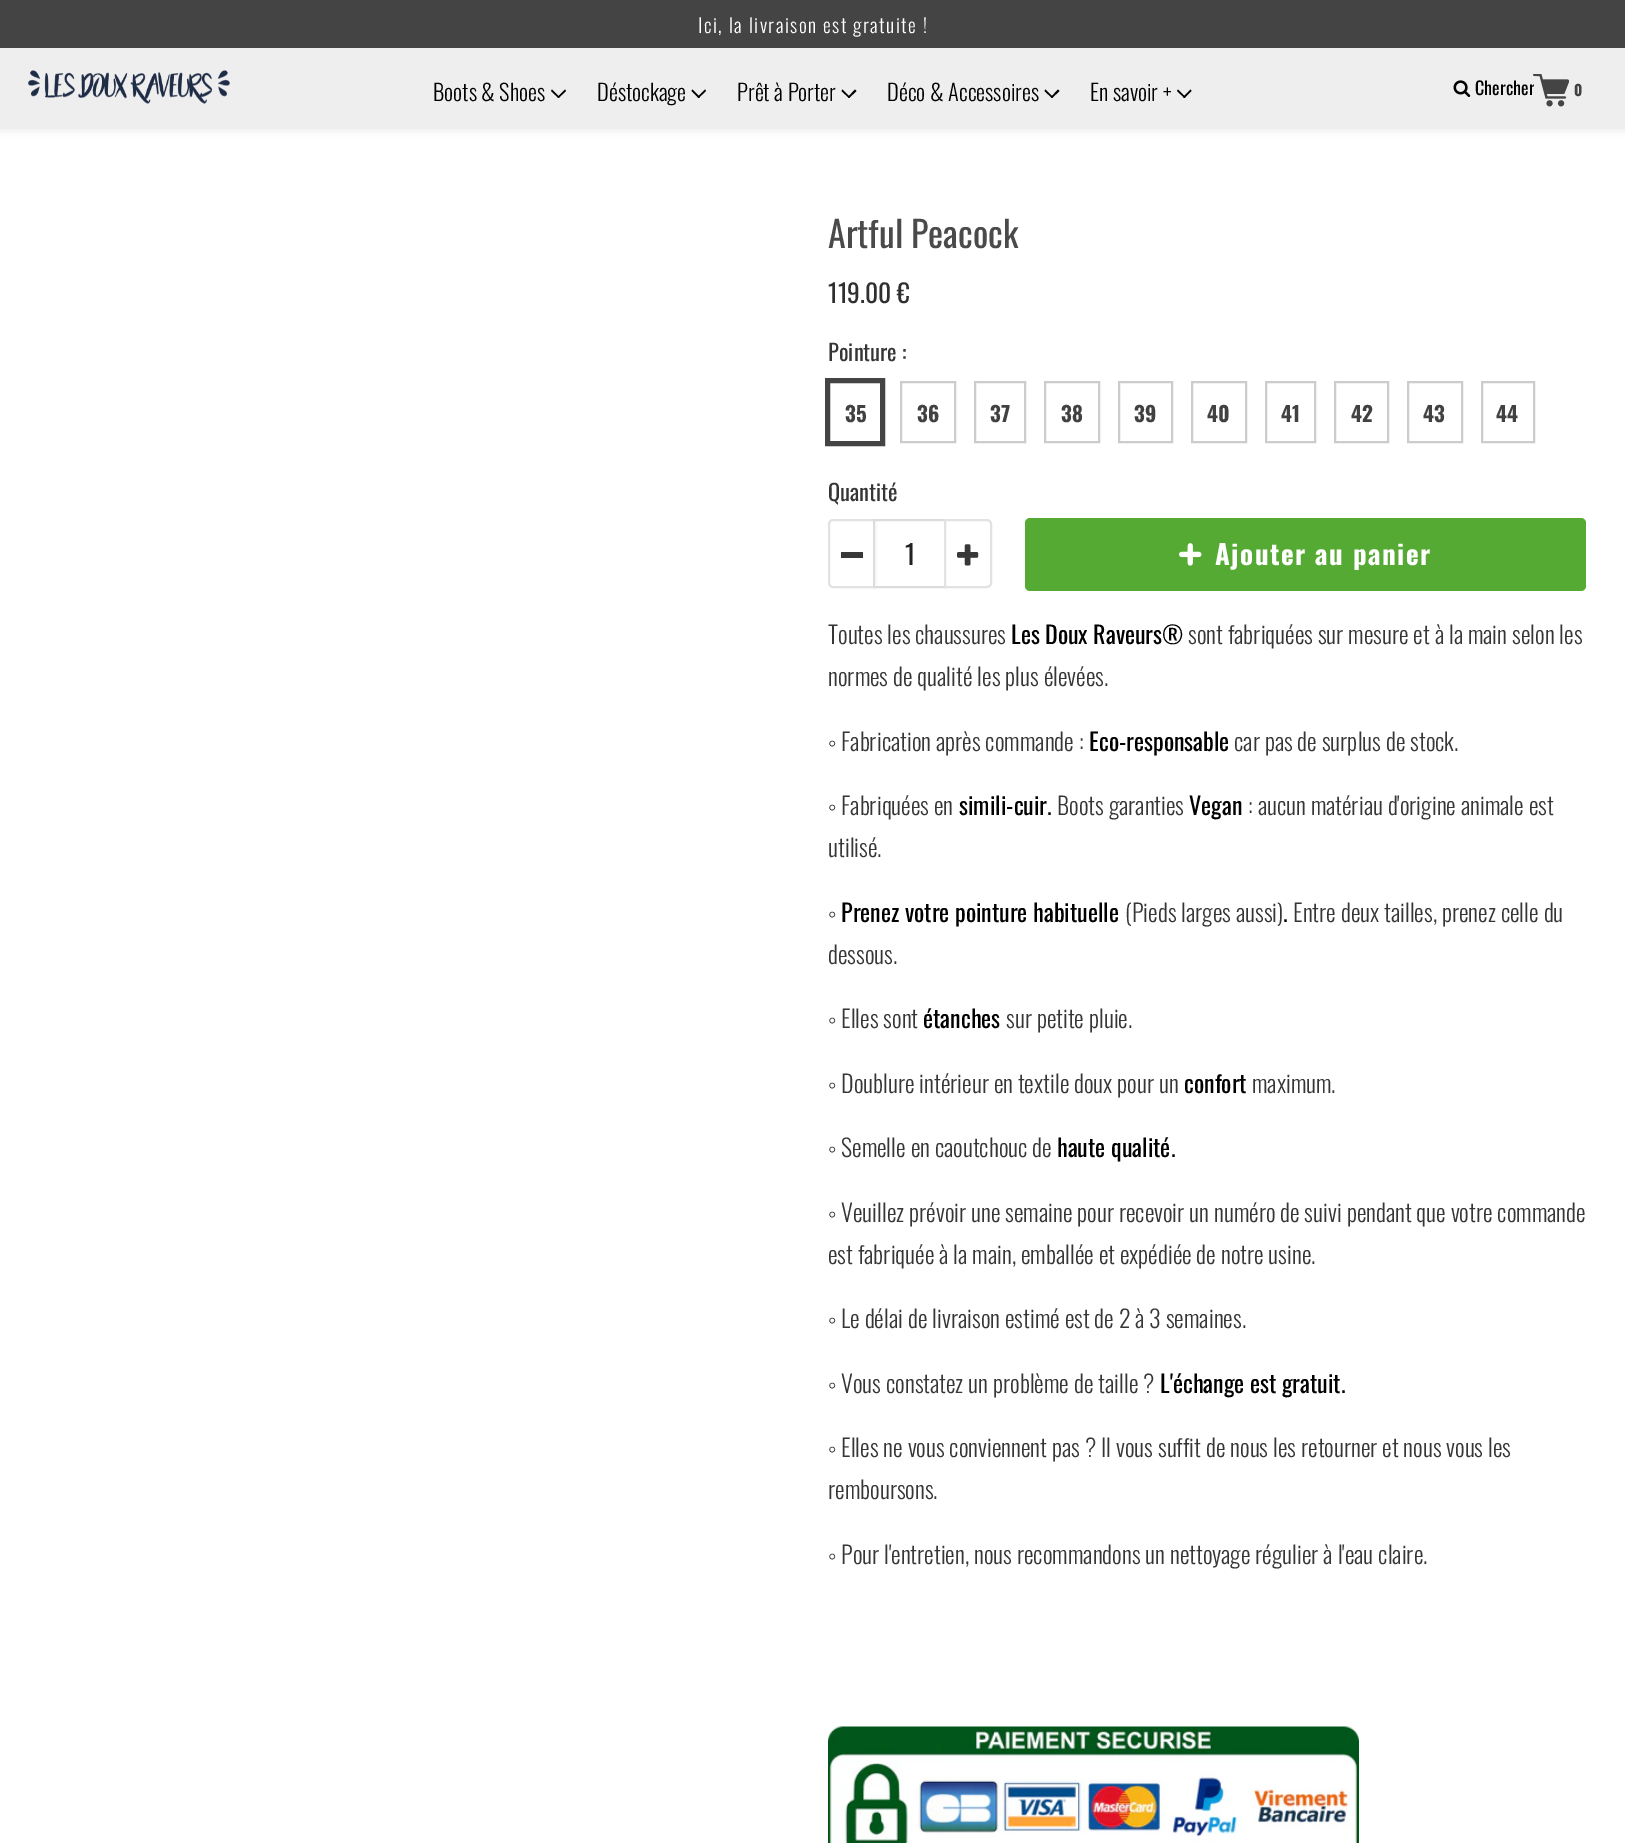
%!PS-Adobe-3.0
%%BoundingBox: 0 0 1625 1843
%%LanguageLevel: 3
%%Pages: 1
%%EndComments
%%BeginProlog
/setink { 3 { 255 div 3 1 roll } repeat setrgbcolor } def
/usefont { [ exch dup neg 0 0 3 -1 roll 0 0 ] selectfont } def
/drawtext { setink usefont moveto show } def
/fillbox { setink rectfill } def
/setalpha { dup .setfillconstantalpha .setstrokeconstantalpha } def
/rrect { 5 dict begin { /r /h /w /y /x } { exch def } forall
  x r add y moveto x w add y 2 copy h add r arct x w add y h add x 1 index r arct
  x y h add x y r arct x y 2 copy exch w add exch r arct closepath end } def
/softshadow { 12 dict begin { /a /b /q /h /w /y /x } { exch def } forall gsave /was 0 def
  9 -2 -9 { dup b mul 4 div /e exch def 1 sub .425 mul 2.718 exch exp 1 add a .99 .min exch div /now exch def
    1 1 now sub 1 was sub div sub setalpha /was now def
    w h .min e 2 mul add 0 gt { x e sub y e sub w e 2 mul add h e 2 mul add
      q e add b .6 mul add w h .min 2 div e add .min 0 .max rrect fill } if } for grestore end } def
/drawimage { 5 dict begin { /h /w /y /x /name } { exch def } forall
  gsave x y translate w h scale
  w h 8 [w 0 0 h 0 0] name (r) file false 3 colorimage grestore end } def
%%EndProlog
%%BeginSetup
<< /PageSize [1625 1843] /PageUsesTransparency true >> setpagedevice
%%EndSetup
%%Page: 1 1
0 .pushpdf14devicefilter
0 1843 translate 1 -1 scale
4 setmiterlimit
0 0 1625 1843 255 255 255 fillbox
0 0 0 setink
0 0 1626 129 0 4.5 0.1 softshadow
0 48 1625 81 238 238 238 fillbox
0 0 1625 48 68 68 68 fillbox
/Oswald-Light 19.5 usefont
255 255 255 setink
698 33 moveto 1.5 0 (Ici, la livraison est gratuite !) ashow
(Boots & Shoes) 433 101 /Oswald-Light 22.5 0 0 0 drawtext
565 89.5 moveto 566 91 lineto 558.5 98 lineto 557.5 97 lineto closepath fill
552 89.5 moveto 559.5 97 lineto 558.5 98 lineto 551 91 lineto closepath fill
(Déstockage) 597 101 /Oswald-Light 22.5 0 0 0 drawtext
705 89.5 moveto 706 91 lineto 698.5 98 lineto 697.5 97 lineto closepath fill
692.5 89.5 moveto 700 97 lineto 698.5 98 lineto 691.5 91 lineto closepath fill
(Prêt à Porter) 737 101 /Oswald-Light 22.5 0 0 0 drawtext
855 89.5 moveto 856.5 91 lineto 849 98 lineto 848 97 lineto closepath fill
842.5 89.5 moveto 850 97 lineto 849 98 lineto 841.5 91 lineto closepath fill
(Déco & Accessoires) 887 101 /Oswald-Light 22.5 0 0 0 drawtext
1058 89.5 moveto 1059.5 91 lineto 1052 98 lineto 1051 97 lineto closepath fill
1045.5 89.5 moveto 1053 97 lineto 1052 98 lineto 1044.5 91 lineto closepath fill
(En savoir +) 1090 101 /Oswald-Light 22.5 0 0 0 drawtext
1190.5 89.5 moveto 1191.5 91 lineto 1184.5 98 lineto 1183 97 lineto closepath fill
1178 89.5 moveto 1185.5 97 lineto 1184.5 98 lineto 1177 91 lineto closepath fill
(assets/img1.rgb) 28 70 202 34 drawimage
(assets/img2.rgb) 1453 80 18 17 drawimage
(Chercher) 1475 95 /Oswald-Regular 18 0 0 0 drawtext
(assets/img3.rgb) 1533 74 36 33 drawimage
(0) 1574 96 /Oswald-Bold 15 65 65 65 drawtext
(Artful Peacock) 828 248 /Oswald-Regular 36 74 74 74 drawtext
(119.00 €) 828 303 /Oswald-Regular 25.5 47 47 47 drawtext
(Pointure :) 828 361 /Oswald-Regular 22.5 54 54 54 drawtext
68 68 68 setink
2 setlinewidth
829 382 52 60 rectstroke
3 setlinewidth
826.5 379.5 57 65 rectstroke
(35) 845 422 /Oswald-Bold 21 65 65 65 drawtext
204 204 204 setink
2 setlinewidth
901 382 54 60 rectstroke
(36) 917 422 /Oswald-Bold 21 65 65 65 drawtext
204 204 204 setink
975 382 50 60 rectstroke
(37) 990 422 /Oswald-Bold 21 65 65 65 drawtext
204 204 204 setink
1045 382 54 60 rectstroke
(38) 1061 422 /Oswald-Bold 21 65 65 65 drawtext
204 204 204 setink
1119 382 53 60 rectstroke
(39) 1134 422 /Oswald-Bold 21 65 65 65 drawtext
204 204 204 setink
1192 382 54 60 rectstroke
(40) 1207 422 /Oswald-Bold 21 65 65 65 drawtext
204 204 204 setink
1266 382 49 60 rectstroke
(41) 1281 422 /Oswald-Bold 21 65 65 65 drawtext
204 204 204 setink
1335 382 53 60 rectstroke
(42) 1351 422 /Oswald-Bold 21 65 65 65 drawtext
204 204 204 setink
1408 382 54 60 rectstroke
(43) 1423 422 /Oswald-Bold 21 65 65 65 drawtext
204 204 204 setink
1482 382 52 60 rectstroke
(44) 1496 422 /Oswald-Bold 21 65 65 65 drawtext
(Quantité) 828 501 /Oswald-Regular 22.5 54 54 54 drawtext
226 226 226 setink
833 520 moveto 875 520 lineto 875 587 lineto 833 587 lineto 831 587 829 585 829 583 curveto 829 524 lineto 829 522 831 520 833 520 curveto closepath stroke
841 552 22 6 56 56 56 fillbox
875 521 1 65 255 255 255 fillbox
221 220 220 setink
874 520 72 67 rectstroke
(1) 905 565 /Oswald-Regular 27 34 34 34 drawtext
255 255 255 setink
945 520 moveto 987 520 lineto 989 520 991 522 991 524 curveto 991 583 lineto 991 585 989 587 987 587 curveto 945 587 lineto closepath gsave fill grestore
226 226 226 setink
stroke
(assets/img4.rgb) 957 544 22 22 drawimage
85 170 51 setink
1025 518 561 73 5 rrect fill
(assets/img5.rgb) 1179 543 23 23 drawimage
/Oswald-Bold 27 usefont
255 255 255 setink
1215 565 moveto 1.5 0 (Ajouter au panier) ashow
(Toutes les chaussures) 828 644 /Oswald-Light 24 54 54 54 drawtext
(Les Doux Raveurs®) 1011 644 /Oswald-Regular 24 0 0 0 drawtext
(sont fabriquées sur mesure et à la main selon les) 1188 644 /Oswald-Light 24 54 54 54 drawtext
(normes de qualité les plus élevées.) 828 686 /Oswald-Light 24 54 54 54 drawtext
(◦) 828 751 /LiberationSerif-Regular 24 54 54 54 drawtext
(Fabrication après commande :) 841 751 /Oswald-Light 24 54 54 54 drawtext
(Eco-responsable) 1089 751 /Oswald-Regular 24 0 0 0 drawtext
(car pas de surplus de stock.) 1234 751 /Oswald-Light 24 54 54 54 drawtext
(◦) 828 815 /LiberationSerif-Regular 24 54 54 54 drawtext
(Fabriquées en) 841 815 /Oswald-Light 24 54 54 54 drawtext
(simili-cuir.) 959 815 /Oswald-Regular 24 0 0 0 drawtext
(Boots garanties) 1057 815 /Oswald-Light 24 54 54 54 drawtext
(Vegan) 1189 815 /Oswald-Regular 24 0 0 0 drawtext
(: aucun matériau d'origine animale est) 1248 815 /Oswald-Light 24 54 54 54 drawtext
(utilisé.) 828 857 /Oswald-Light 24 54 54 54 drawtext
(◦) 828 922 /LiberationSerif-Regular 24 54 54 54 drawtext
(Prenez votre pointure habituelle) 841 922 /Oswald-Regular 24 0 0 0 drawtext
(\(Pieds larges aussi\)) 1125 922 /Oswald-Light 24 54 54 54 drawtext
(Entre deux tailles, prenez celle du) 1293 922 /Oswald-Light 24 54 54 54 drawtext
(.) 1283 922 /Oswald-Regular 24 0 0 0 drawtext
(dessous.) 828 964 /Oswald-Light 24 54 54 54 drawtext
(◦) 828 1028 /LiberationSerif-Regular 24 54 54 54 drawtext
(Elles sont) 841 1028 /Oswald-Light 24 54 54 54 drawtext
(étanches) 923 1028 /Oswald-Regular 24 0 0 0 drawtext
(sur petite pluie.) 1006 1028 /Oswald-Light 24 54 54 54 drawtext
(◦) 828 1093 /LiberationSerif-Regular 24 54 54 54 drawtext
(Doublure intérieur en textile doux pour un) 841 1093 /Oswald-Light 24 54 54 54 drawtext
(confort) 1184 1093 /Oswald-Regular 24 0 0 0 drawtext
(maximum.) 1252 1093 /Oswald-Light 24 54 54 54 drawtext
(◦) 828 1157 /LiberationSerif-Regular 24 54 54 54 drawtext
(Semelle en caoutchouc de) 841 1157 /Oswald-Light 24 54 54 54 drawtext
(haute qualité.) 1057 1157 /Oswald-Regular 24 0 0 0 drawtext
(◦) 828 1222 /LiberationSerif-Regular 24 54 54 54 drawtext
(Veuillez prévoir une semaine pour recevoir un numéro de suivi pendant que votre commande) 841 1222 /Oswald-Light 24 54 54 54 drawtext
(est fabriquée à la main, emballée et expédiée de notre usine.) 828 1264 /Oswald-Light 24 54 54 54 drawtext
(◦) 828 1328 /LiberationSerif-Regular 24 54 54 54 drawtext
(Le délai de livraison estimé est de 2 à 3 semaines.) 841 1328 /Oswald-Light 24 54 54 54 drawtext
(◦) 828 1393 /LiberationSerif-Regular 24 54 54 54 drawtext
(Vous constatez un problème de taille ?) 841 1393 /Oswald-Light 24 54 54 54 drawtext
(L'échange est gratuit.) 1160 1393 /Oswald-Regular 24 0 0 0 drawtext
(◦) 828 1457 /LiberationSerif-Regular 24 54 54 54 drawtext
(Elles ne vous conviennent pas ? Il vous suffit de nous les retourner et nous vous les) 841 1457 /Oswald-Light 24 54 54 54 drawtext
(remboursons.) 828 1499 /Oswald-Light 24 54 54 54 drawtext
(◦) 828 1564 /LiberationSerif-Regular 24 54 54 54 drawtext
(Pour l'entretien, nous recommandons un nettoyage régulier à l'eau claire.) 841 1564 /Oswald-Light 24 54 54 54 drawtext
(assets/img6.rgb) 828 1726 531 117 drawimage
.poppdf14devicefilter showpage
%%EOF
